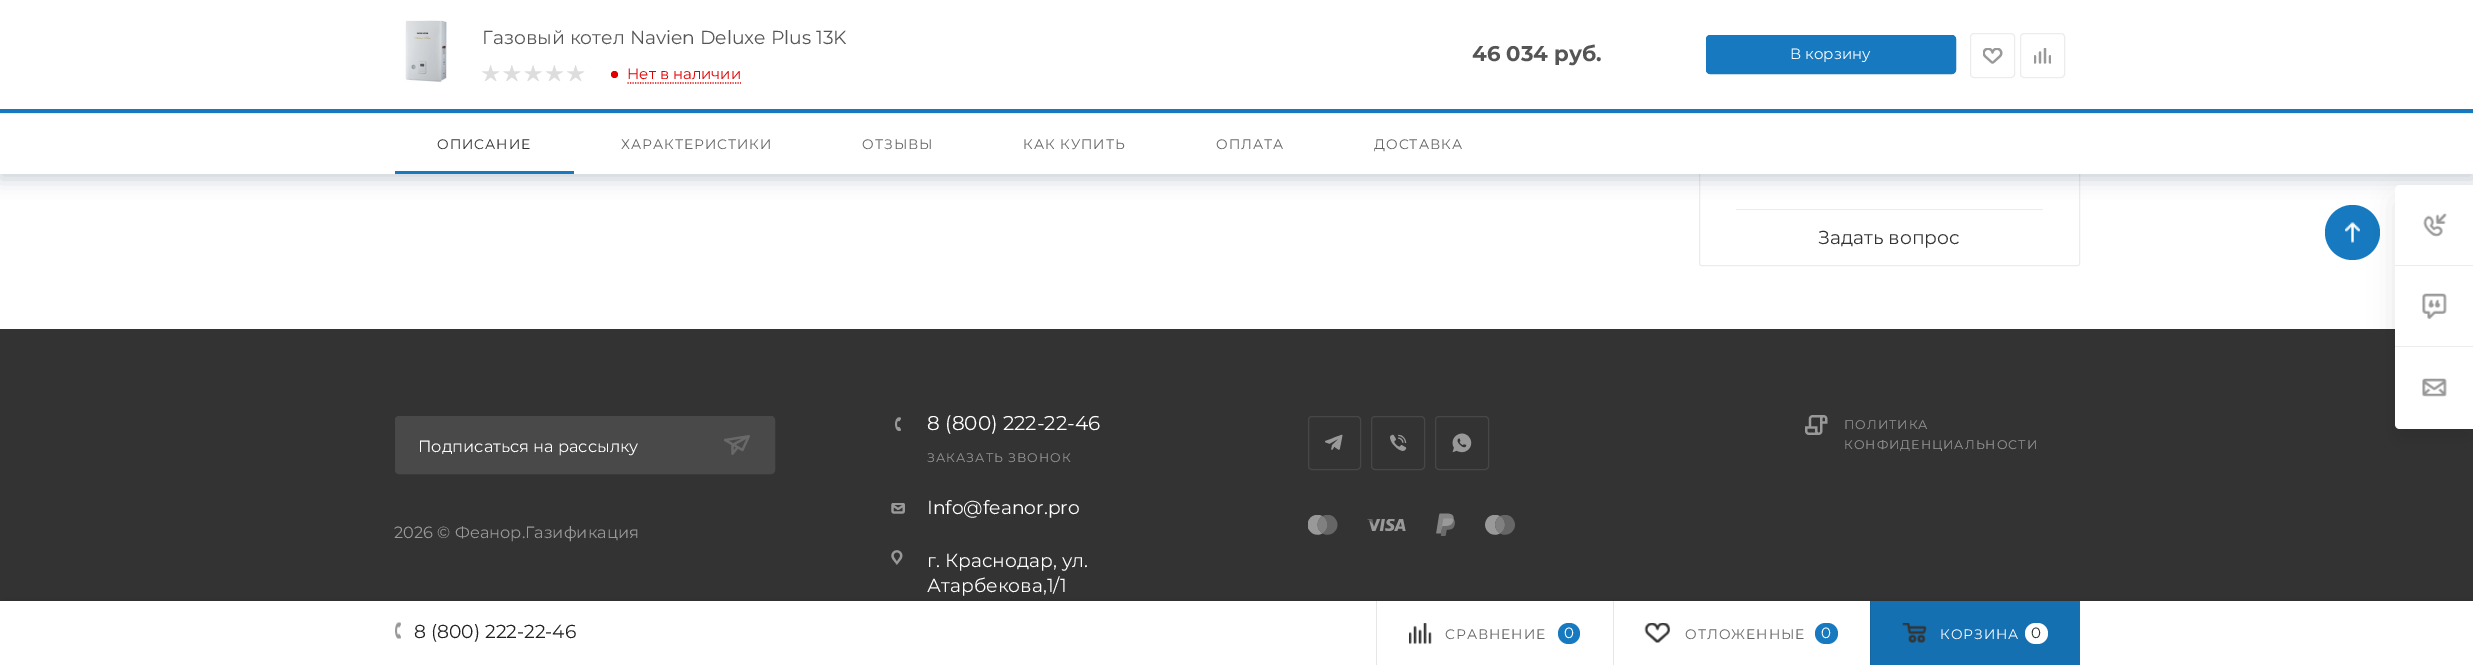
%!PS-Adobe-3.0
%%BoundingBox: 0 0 2473 665
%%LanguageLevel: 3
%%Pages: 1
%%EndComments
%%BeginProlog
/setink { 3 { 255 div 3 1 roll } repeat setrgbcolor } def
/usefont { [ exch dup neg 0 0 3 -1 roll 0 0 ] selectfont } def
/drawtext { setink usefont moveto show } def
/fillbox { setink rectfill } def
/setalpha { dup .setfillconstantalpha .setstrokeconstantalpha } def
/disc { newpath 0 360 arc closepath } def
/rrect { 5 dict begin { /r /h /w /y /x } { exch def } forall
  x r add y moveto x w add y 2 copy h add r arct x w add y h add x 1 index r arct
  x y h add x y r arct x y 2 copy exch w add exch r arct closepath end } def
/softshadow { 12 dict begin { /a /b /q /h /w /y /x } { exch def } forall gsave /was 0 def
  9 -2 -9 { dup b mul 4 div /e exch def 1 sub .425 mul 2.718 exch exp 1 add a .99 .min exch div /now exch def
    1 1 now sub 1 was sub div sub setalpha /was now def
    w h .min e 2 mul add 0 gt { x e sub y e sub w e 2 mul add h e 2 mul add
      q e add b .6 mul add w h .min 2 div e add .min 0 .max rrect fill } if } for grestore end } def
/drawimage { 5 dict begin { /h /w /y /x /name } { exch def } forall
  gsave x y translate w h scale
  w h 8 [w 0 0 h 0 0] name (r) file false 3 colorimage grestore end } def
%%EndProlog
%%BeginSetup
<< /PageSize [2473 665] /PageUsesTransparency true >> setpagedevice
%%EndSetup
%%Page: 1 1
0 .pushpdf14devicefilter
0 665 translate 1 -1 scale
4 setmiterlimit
0 0 2473 665 255 255 255 fillbox
236 236 236 setink
1699.5 -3.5 380 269 2 rrect stroke
32 54 74 setink
0 118 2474 61 0 9 0.23 softshadow
0 0 2473 109 255 255 255 fillbox
(assets/img1.rgb) 405 20 42 62 drawimage
(Газовый котел Navien Deluxe Plus 13K) 482 44 /Montserrat-Regular 18.75 85 85 85 drawtext
(assets/img2.rgb) 482 65 18 16 drawimage
(assets/img3.rgb) 503 65 18 16 drawimage
(assets/img4.rgb) 524 65 18 16 drawimage
(assets/img5.rgb) 545 65 18 16 drawimage
(assets/img2.rgb) 567 65 18 16 drawimage
225 0 0 setink
614.5 74.5 3.5 disc fill
(Нет в наличии) 627 79 /Montserrat-Regular 15 225 0 0 drawtext
1.2 setlinewidth
[1.25 1.25] 0 setdash
627.5 83 moveto 741 83 lineto stroke
(46 034 руб.) 1472 61 /Montserrat-Bold 21.25 85 85 85 drawtext
23 121 191 setink
1706.5 35.5 249 38 3.5 rrect gsave fill grestore
1 setlinewidth
[] 0 setdash
stroke
(В корзину) 1790 59 /Montserrat-Regular 15 255 255 255 drawtext
236 236 236 setink
1970.5 33.5 44 44 3.5 rrect stroke
(assets/img6.rgb) 1983 48 20 16 drawimage
2020.5 33.5 44 44 3.5 rrect stroke
(assets/img7.rgb) 2034 48 17 16 drawimage
0 109 2473 4 23 121 191 fillbox
0 114 2473 60 255 255 255 fillbox
0 113 2473 1 236 236 236 fillbox
/Montserrat-Regular 13.75 usefont
51 51 51 setink
437 149 moveto 1 0 (ОПИСАНИЕ) ashow
395 171 179 3 23 121 191 fillbox
102 102 102 setink
621 149 moveto 1 0 (ХАРАКТЕРИСТИКИ) ashow
862 149 moveto 1 0 (ОТЗЫВЫ) ashow
1023 149 moveto 1 0 (КАК КУПИТЬ) ashow
1216 149 moveto 1 0 (ОПЛАТА) ashow
1374 149 moveto 1 0 (ДОСТАВКА) ashow
1736 209 307 1 236 236 236 fillbox
(Задать вопрос) 1818 244 /Montserrat-Regular 18.75 51 51 51 drawtext
23 121 191 setink
2352.5 232.5 27.5 disc fill
(assets/img8.rgb) 2345 222 15 21 drawimage
0 329 2473 272 51 51 51 fillbox
0 0 0 setink
2395 198 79 243 5 12.5 0.1 softshadow
255 255 255 setink
2400 185 moveto 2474 185 lineto 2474 429 lineto 2400 429 lineto 2397 429 2395 427 2395 424 curveto 2395 190 lineto 2395 187 2397 185 2400 185 curveto closepath fill
2395 265 78 1 236 236 236 fillbox
(assets/img9.rgb) 2423 213 24 24 drawimage
2395 346 78 1 236 236 236 fillbox
(assets/img10.rgb) 2422 293 25 26 drawimage
(assets/img11.rgb) 2422 378 25 19 drawimage
(assets/img12.rgb) 895 417 6 14 drawimage
(8 \(800\) 222-22-46) 927 430 /Montserrat-Regular 20 255 255 255 drawtext
/Montserrat-Regular 12.5 usefont
153 153 153 setink
927 462 moveto 1 0 (ЗАКАЗАТЬ ЗВОНОК) ashow
(assets/img13.rgb) 891 503 14 11 drawimage
(Info@feanor.pro) 927 514 /Montserrat-Regular 18.75 255 255 255 drawtext
(assets/img14.rgb) 891 550 12 15 drawimage
(г. Краснодар, ул.) 927 567 /Montserrat-Regular 18.75 255 255 255 drawtext
(Атарбекова,1/1) 927 592 /Montserrat-Regular 18.75 255 255 255 drawtext
(assets/img15.rgb) 1325 434 18 16 drawimage
71 71 71 setink
1308.5 416.5 52 53 3.5 rrect stroke
(assets/img16.rgb) 1390 434 17 17 drawimage
1371.5 416.5 53 53 3.5 rrect stroke
(assets/img17.rgb) 1452 433 20 20 drawimage
1435.5 416.5 53 53 3.5 rrect stroke
(assets/img18.rgb) 1308 515 30 20 drawimage
(assets/img19.rgb) 1367 519 39 12 drawimage
(assets/img20.rgb) 1436 513 19 23 drawimage
(assets/img21.rgb) 1485 515 30 20 drawimage
(assets/img22.rgb) 1805 415 23 20 drawimage
/Montserrat-Regular 12.5 usefont
153 153 153 setink
1844 429 moveto 1 0 (ПОЛИТИКА) ashow
1844 449 moveto 1 0 (КОНФИДЕНЦИАЛЬНОСТИ) ashow
73 73 73 setink
395.5 416.5 379 57 3.5 rrect gsave fill grestore
stroke
(Подписаться на рассылку) 418 452 /Montserrat-Regular 16.25 255 255 255 drawtext
(assets/img23.rgb) 724 435 26 20 drawimage
(2026 © Феанор.Газификация) 394 538 /Montserrat-Regular 16.25 153 153 153 drawtext
0 0 0 setink
3 601 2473 64 0 6 0.1 softshadow
0 601 2473 64 255 255 255 fillbox
(assets/img24.rgb) 395 622 6 17 drawimage
(8 \(800\) 222-22-46) 414 638 /Montserrat-Regular 18.75 34 34 34 drawtext
1376 601 1 64 230 230 230 fillbox
(assets/img25.rgb) 1409 623 23 22 drawimage
/Montserrat-Regular 13.75 usefont
102 102 102 setink
1445 639 moveto 1 0 (СРАВНЕНИЕ) ashow
23 121 191 setink
1558 623 22 21 10.5 rrect fill
(0) 1564 638 /Montserrat-Regular 15 255 255 255 drawtext
1613 601 1 64 230 230 230 fillbox
(assets/img26.rgb) 1644 623 27 20 drawimage
/Montserrat-Regular 13.75 usefont
102 102 102 setink
1685 639 moveto 1 0 (ОТЛОЖЕННЫЕ) ashow
23 121 191 setink
1815 623 23 21 10.5 rrect fill
(0) 1821 638 /Montserrat-Regular 15 255 255 255 drawtext
1871 601 209 64 21 112 177 fillbox
1870 601 1 64 19 101 159 fillbox
(assets/img27.rgb) 1902 623 25 20 drawimage
/Montserrat-Regular 13.75 usefont
255 255 255 setink
1940 639 moveto 1 0 (КОРЗИНА) ashow
2025 623 23 21 10.5 rrect fill
(0) 2031 638 /Montserrat-Regular 15 51 51 51 drawtext
.poppdf14devicefilter showpage
%%EOF
